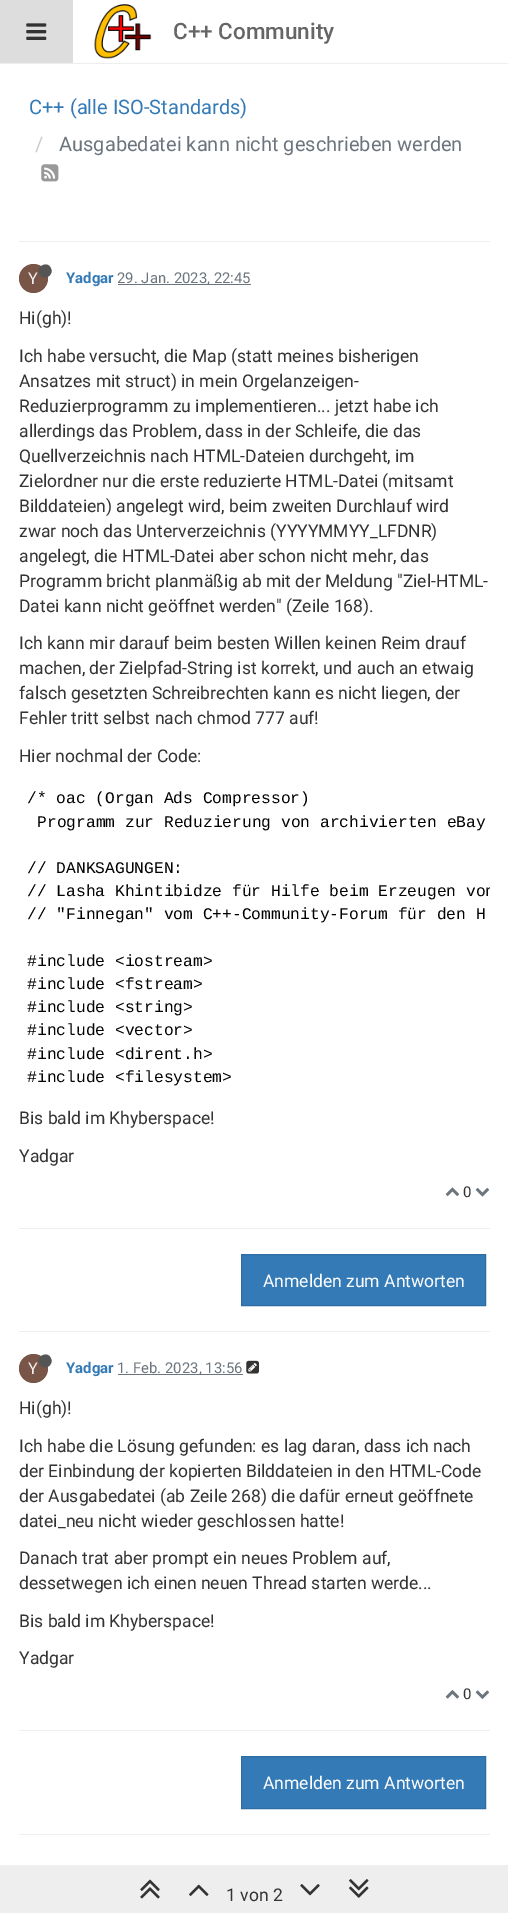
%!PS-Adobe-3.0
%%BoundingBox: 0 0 508 1913
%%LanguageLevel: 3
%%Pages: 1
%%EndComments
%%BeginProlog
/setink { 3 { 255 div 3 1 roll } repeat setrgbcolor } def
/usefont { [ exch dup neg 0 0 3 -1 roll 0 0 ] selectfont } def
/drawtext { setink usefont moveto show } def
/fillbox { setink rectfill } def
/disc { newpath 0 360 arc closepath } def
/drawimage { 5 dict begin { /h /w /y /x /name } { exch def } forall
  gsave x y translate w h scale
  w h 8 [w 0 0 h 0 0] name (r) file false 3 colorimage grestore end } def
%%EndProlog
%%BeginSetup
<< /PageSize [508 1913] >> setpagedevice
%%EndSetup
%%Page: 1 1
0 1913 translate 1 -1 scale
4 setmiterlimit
0 0 508 1913 255 255 255 fillbox
0 63 508 1 238 238 238 fillbox
0 0 73 63 221 221 221 fillbox
(assets/img1.rgb) 26 23 21 17 drawimage
(assets/img2.rgb) 94 4 58 55 drawimage
(C++ Community) 173 39 /Roboto-Medium 22.5 102 102 102 drawtext
(C++ \(alle ISO-Standards\)) 29 114 /Roboto-Regular 20 51 122 183 drawtext
(/) 35 151 /Roboto-Regular 20 204 204 204 drawtext
(Ausgabedatei kann nicht geschrieben werden) 59 151 /Roboto-Regular 20 108 117 125 drawtext
(assets/img3.rgb) 41 164 18 18 drawimage
19 241 471 1 238 238 238 fillbox
121 85 72 setink
33.5 278.5 14.5 disc fill
(Y) 28 284 /Roboto-Regular 16.25 238 238 238 drawtext
85 85 85 setink
50.5 267.5 moveto 55 275 44 281.5 39.5 274 curveto 35.5 267 46.5 260.5 50.5 267.5 curveto closepath fill
(Yadgar) 66 283 /Roboto-Bold 14.9 51 122 183 drawtext
118 284 133 1 108 117 125 fillbox
(29. Jan. 2023, 22:45) 117 283 /Roboto-Regular 14.9 108 117 125 drawtext
(Hi\(gh\)!) 19 324 /Roboto-Regular 17.5 51 51 51 drawtext
(Ich habe versucht, die Map \(statt meines bisherigen) 19 362 /Roboto-Regular 17.5 51 51 51 drawtext
(Ansatzes mit struct\) in mein Orgelanzeigen-) 19 387 /Roboto-Regular 17.5 51 51 51 drawtext
(Reduzierprogramm zu implementieren... jetzt habe ich) 19 412 /Roboto-Regular 17.5 51 51 51 drawtext
(allerdings das Problem, dass in der Schleife, die das) 19 437 /Roboto-Regular 17.5 51 51 51 drawtext
(Quellverzeichnis nach HTML-Dateien durchgeht, im) 19 462 /Roboto-Regular 17.5 51 51 51 drawtext
(Zielordner nur die erste reduzierte HTML-Datei \(mitsamt) 19 487 /Roboto-Regular 17.5 51 51 51 drawtext
(Bilddateien\) angelegt wird, beim zweiten Durchlauf wird) 19 512 /Roboto-Regular 17.5 51 51 51 drawtext
(zwar noch das Unterverzeichnis \(YYYYMMYY_LFDNR\)) 19 537 /Roboto-Regular 17.5 51 51 51 drawtext
(angelegt, die HTML-Datei aber schon nicht mehr, das) 19 562 /Roboto-Regular 17.5 51 51 51 drawtext
(Programm bricht planmäßig ab mit der Meldung "Ziel-HTML-) 19 587 /Roboto-Regular 17.5 51 51 51 drawtext
(Datei kann nicht geöffnet werden" \(Zeile 168\).) 19 612 /Roboto-Regular 17.5 51 51 51 drawtext
(Ich kann mir darauf beim besten Willen keinen Reim drauf) 19 649 /Roboto-Regular 17.5 51 51 51 drawtext
(machen, der Zielpfad-String ist korrekt, und auch an etwaig) 19 674 /Roboto-Regular 17.5 51 51 51 drawtext
(falsch gesetzten Schreibrechten kann es nicht liegen, der) 19 699 /Roboto-Regular 17.5 51 51 51 drawtext
(Fehler tritt selbst nach chmod 777 auf!) 19 724 /Roboto-Regular 17.5 51 51 51 drawtext
(Hier nochmal der Code:) 19 762 /Roboto-Regular 17.5 51 51 51 drawtext
(/* oac \(Organ Ads Compressor\)) 27 803 /LiberationMono-Regular 16.25 0 0 0 drawtext
(Programm zur Reduzierung von archivierten eBay) 37 827 /LiberationMono-Regular 16.25 0 0 0 drawtext
(// DANKSAGUNGEN:) 27 873 /LiberationMono-Regular 16.25 0 0 0 drawtext
gsave
19 780 471 313 rectclip
(// Lasha Khintibidze für Hilfe beim Erzeugen von) 27 896 /LiberationMono-Regular 16.25 0 0 0 drawtext
grestore
(// "Finnegan" vom C++-Community-Forum für den H) 27 919 /LiberationMono-Regular 16.25 0 0 0 drawtext
(#include <iostream>) 27 966 /LiberationMono-Regular 16.25 0 0 0 drawtext
(#include <fstream>) 27 989 /LiberationMono-Regular 16.25 0 0 0 drawtext
(#include <string>) 27 1012 /LiberationMono-Regular 16.25 0 0 0 drawtext
(#include <vector>) 27 1035 /LiberationMono-Regular 16.25 0 0 0 drawtext
(#include <dirent.h>) 27 1059 /LiberationMono-Regular 16.25 0 0 0 drawtext
(#include <filesystem>) 27 1082 /LiberationMono-Regular 16.25 0 0 0 drawtext
(Bis bald im Khyberspace!) 19 1124 /Roboto-Regular 17.5 51 51 51 drawtext
(Yadgar) 19 1162 /Roboto-Regular 17.5 51 51 51 drawtext
(assets/img4.rgb) 445 1187 15 9 drawimage
(0) 463 1197 /Roboto-Regular 14.9 51 51 51 drawtext
(assets/img5.rgb) 475 1188 15 9 drawimage
19 1228 471 1 238 238 238 fillbox
51 122 183 setink
241.5 1254.5 moveto 485.5 1254.5 lineto 485.5 1305.5 lineto 241.5 1305.5 lineto closepath gsave fill grestore
46 109 164 setink
stroke
(Anmelden zum Antworten) 263 1287 /Roboto-Regular 17.5 255 255 255 drawtext
19 1331 471 1 238 238 238 fillbox
121 85 72 setink
33.5 1368.5 14.5 disc fill
(Y) 28 1374 /Roboto-Regular 16.25 238 238 238 drawtext
85 85 85 setink
50.5 1357.5 moveto 55 1365 44 1371.5 39.5 1364 curveto 35.5 1357 46.5 1350.5 50.5 1357.5 curveto closepath fill
(Yadgar) 66 1373 /Roboto-Bold 14.9 51 122 183 drawtext
118 1374 125 1 108 117 125 fillbox
(1. Feb. 2023, 13:56) 117 1373 /Roboto-Regular 14.9 108 117 125 drawtext
(assets/img6.rgb) 246 1360 13 14 drawimage
(Hi\(gh\)!) 19 1414 /Roboto-Regular 17.5 51 51 51 drawtext
(Ich habe die Lösung gefunden: es lag daran, dass ich nach) 19 1452 /Roboto-Regular 17.5 51 51 51 drawtext
(der Einbindung der kopierten Bilddateien in den HTML-Code) 19 1477 /Roboto-Regular 17.5 51 51 51 drawtext
(der Ausgabedatei \(ab Zeile 268\) die dafür erneut geöffnete) 19 1502 /Roboto-Regular 17.5 51 51 51 drawtext
(datei_neu nicht wieder geschlossen hatte!) 19 1527 /Roboto-Regular 17.5 51 51 51 drawtext
(Danach trat aber prompt ein neues Problem auf,) 19 1564 /Roboto-Regular 17.5 51 51 51 drawtext
(dessetwegen ich einen neuen Thread starten werde...) 19 1589 /Roboto-Regular 17.5 51 51 51 drawtext
(Bis bald im Khyberspace!) 19 1627 /Roboto-Regular 17.5 51 51 51 drawtext
(Yadgar) 19 1664 /Roboto-Regular 17.5 51 51 51 drawtext
(assets/img7.rgb) 445 1690 15 9 drawimage
(0) 463 1699 /Roboto-Regular 14.9 51 51 51 drawtext
(assets/img8.rgb) 475 1690 15 9 drawimage
19 1730 471 1 238 238 238 fillbox
51 122 183 setink
241.5 1756.5 moveto 485.5 1756.5 lineto 485.5 1808.5 lineto 241.5 1808.5 lineto closepath gsave fill grestore
46 109 164 setink
stroke
(Anmelden zum Antworten) 263 1789 /Roboto-Regular 17.5 255 255 255 drawtext
19 1834 471 1 238 238 238 fillbox
0 1865 508 48 238 238 238 fillbox
(assets/img9.rgb) 140 1879 20 20 drawimage
(assets/img10.rgb) 189 1884 20 12 drawimage
(1 von 2) 226 1901 /Roboto-Regular 17.5 51 51 51 drawtext
(assets/img11.rgb) 300 1884 20 12 drawimage
(assets/img12.rgb) 349 1879 20 19 drawimage
showpage
%%EOF
